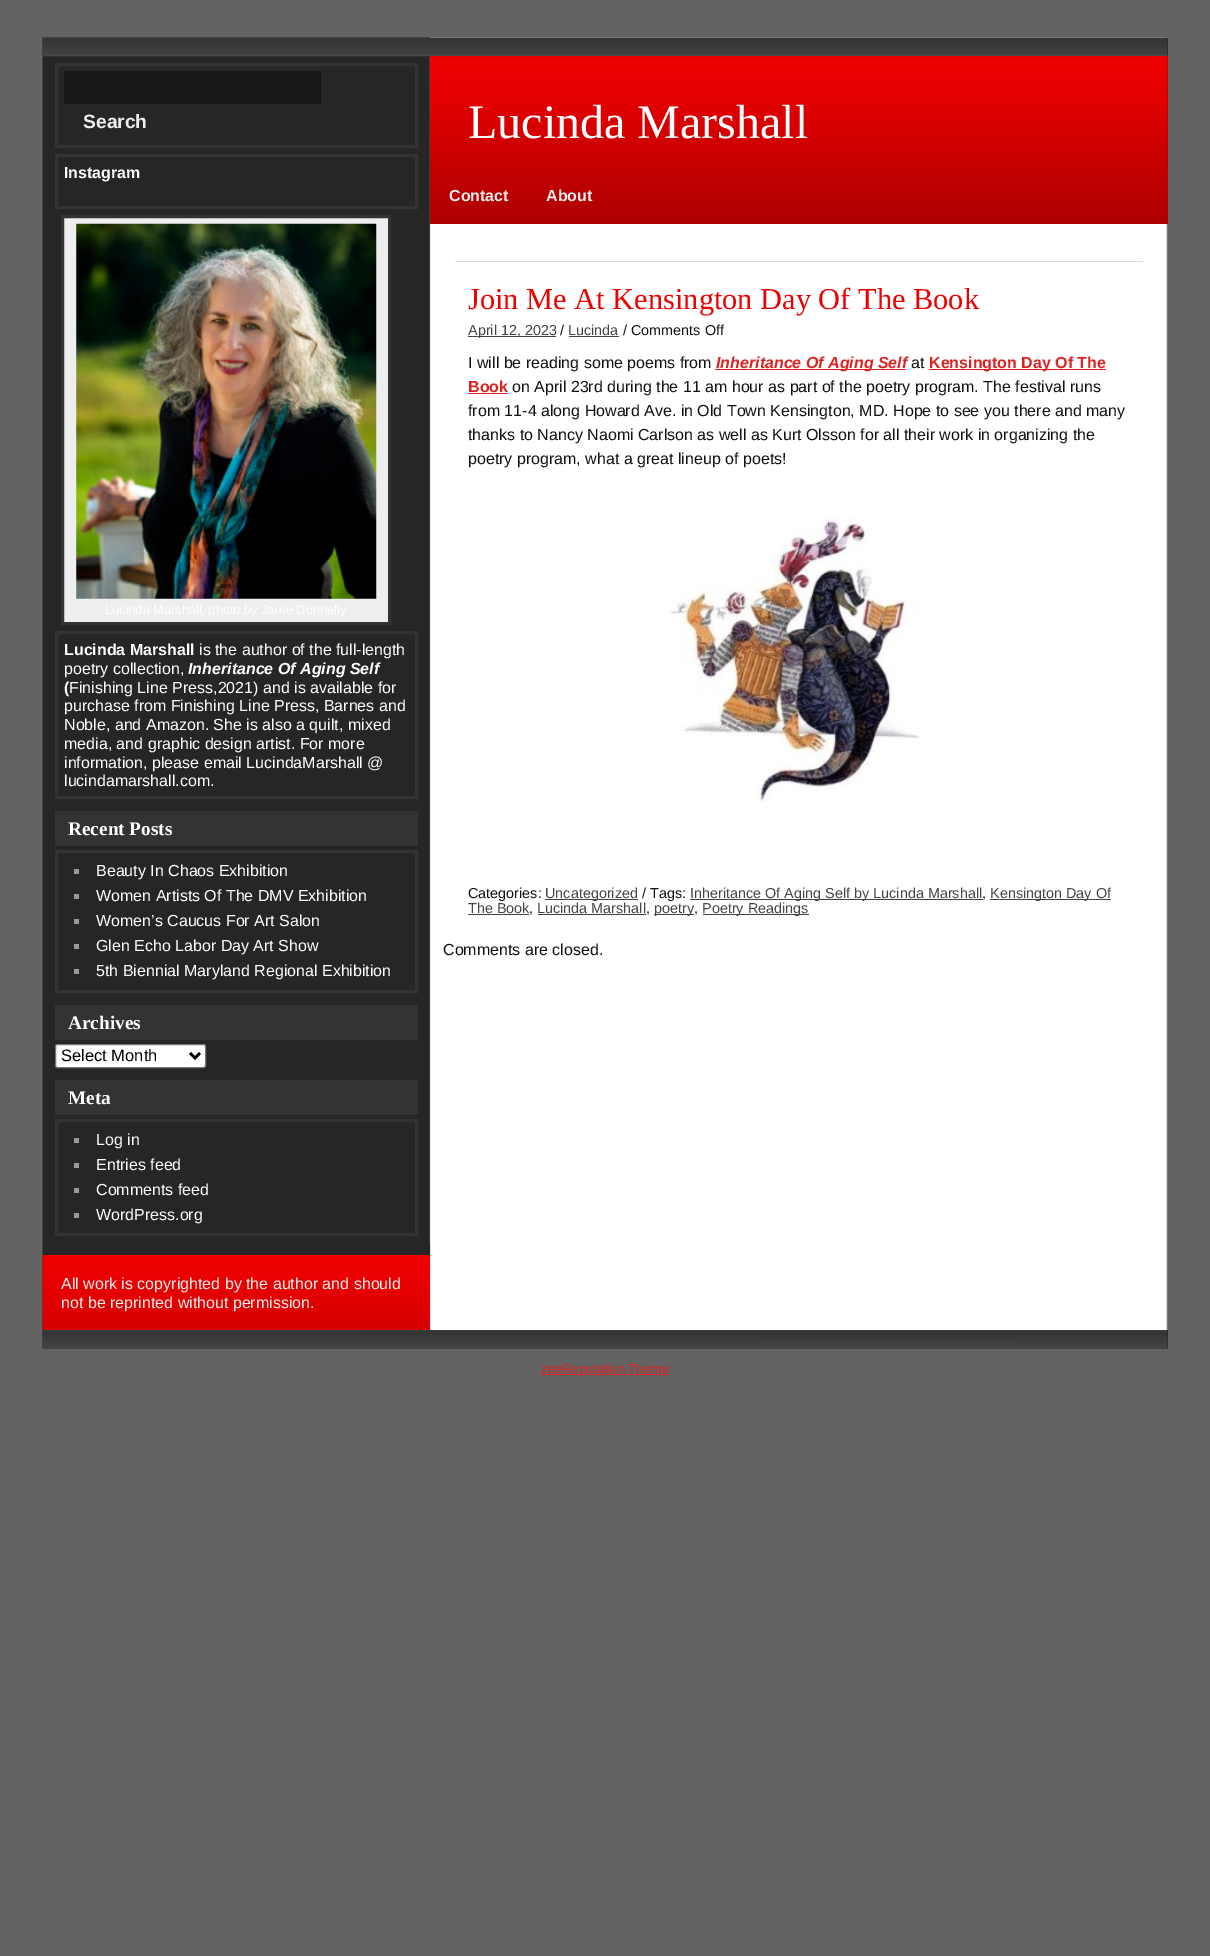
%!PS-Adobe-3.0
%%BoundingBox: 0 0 1210 1956
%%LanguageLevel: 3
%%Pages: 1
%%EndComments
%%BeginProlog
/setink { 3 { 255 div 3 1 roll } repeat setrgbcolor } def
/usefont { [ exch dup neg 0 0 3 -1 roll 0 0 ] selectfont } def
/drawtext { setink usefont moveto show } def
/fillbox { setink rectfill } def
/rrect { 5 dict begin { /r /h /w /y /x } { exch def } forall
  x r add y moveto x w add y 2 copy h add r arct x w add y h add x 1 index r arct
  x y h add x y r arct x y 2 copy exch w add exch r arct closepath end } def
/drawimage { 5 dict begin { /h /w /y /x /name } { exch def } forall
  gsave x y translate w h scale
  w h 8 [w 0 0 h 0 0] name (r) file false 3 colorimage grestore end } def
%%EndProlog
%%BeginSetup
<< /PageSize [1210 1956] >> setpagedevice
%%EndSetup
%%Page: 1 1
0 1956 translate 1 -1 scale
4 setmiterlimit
0 0 1210 1956 99 99 99 fillbox
1167 224 1 1106 38 38 38 fillbox
(assets/img1.rgb) 42 37 1126 1312 drawimage
1167 38 1 18 34 34 34 fillbox
(assets/img2.rgb) 42 37 1126 20 drawimage
51 51 51 setink
3 setlinewidth
56.5 64.5 360 82 rectstroke
64 71 257 33 24 24 24 fillbox
(Search) 83 128 /LiberationSans-Bold 19.25 238 238 238 drawtext
51 51 51 setink
56.5 155.5 360 52 rectstroke
(Instagram) 64 178 /LiberationSans-Bold 16 255 255 255 drawtext
238 238 238 setink
62.5 216.5 moveto 389.5 216.5 lineto 389.5 623.5 lineto 62.5 623.5 lineto closepath gsave fill grestore
51 51 51 setink
stroke
(assets/img3.rgb) 76 223 301 376 drawimage
(Lucinda Marshall, photo by Jaree Donnelly) 105 614 /LiberationSans-Regular 12.75 255 255 255 drawtext
51 51 51 setink
56.5 632.5 360 165 rectstroke
(Lucinda Marshall) 64 655 /LiberationSans-Bold 16 255 255 255 drawtext
(is the author of the full-length) 199 655 /LiberationSans-Regular 16 255 255 255 drawtext
(poetry collection,) 64 674 /LiberationSans-Regular 16 255 255 255 drawtext
(Inheritance Of Aging Self) 188 674 /LiberationSans-BoldItalic 16 255 255 255 drawtext
(\() 64 693 /LiberationSans-Bold 16 255 255 255 drawtext
(Finishing Line Press,2021\) and is available for) 69 693 /LiberationSans-Regular 16 255 255 255 drawtext
(purchase from Finishing Line Press, Barnes and) 64 711 /LiberationSans-Regular 16 255 255 255 drawtext
(Noble, and Amazon. She is also a quilt, mixed) 64 730 /LiberationSans-Regular 16 255 255 255 drawtext
(media, and graphic design artist. For more) 64 749 /LiberationSans-Regular 16 255 255 255 drawtext
(information, please email LucindaMarshall @) 64 768 /LiberationSans-Regular 16 255 255 255 drawtext
(lucindamarshall.com.) 64 786 /LiberationSans-Regular 16 255 255 255 drawtext
55 811 363 35 51 51 51 fillbox
(Recent Posts) 68 835 /LiberationSerif-Bold 19.25 255 255 255 drawtext
51 51 51 setink
56.5 851.5 360 140 rectstroke
74 869 5 5 153 153 153 fillbox
(Beauty In Chaos Exhibition) 96 876 /LiberationSans-Regular 16 255 255 255 drawtext
74 894 5 5 153 153 153 fillbox
(Women Artists Of The DMV Exhibition) 96 901 /LiberationSans-Regular 16 255 255 255 drawtext
74 919 5 5 153 153 153 fillbox
(Women’s Caucus For Art Salon) 96 926 /LiberationSans-Regular 16 255 255 255 drawtext
74 944 5 5 153 153 153 fillbox
(Glen Echo Labor Day Art Show) 96 951 /LiberationSans-Regular 16 255 255 255 drawtext
74 969 5 5 153 153 153 fillbox
(5th Biennial Maryland Regional Exhibition) 96 976 /LiberationSans-Regular 16 255 255 255 drawtext
55 1005 363 35 51 51 51 fillbox
(Archives) 68 1029 /LiberationSerif-Bold 19.25 255 255 255 drawtext
55.5 1044.5 150 23 2 rrect gsave fill grestore
118 118 118 setink
1 setlinewidth
stroke
0 0 0 setink
2.5 setlinewidth
190 1053 moveto 195 1058 lineto 200 1053 lineto stroke
(Select Month) 61 1061 /LiberationSans-Regular 16.5 0 0 0 drawtext
55 1080 363 35 51 51 51 fillbox
(Meta) 68 1104 /LiberationSerif-Bold 19.25 255 255 255 drawtext
51 51 51 setink
3 setlinewidth
56.5 1120.5 360 114 rectstroke
74 1138 5 5 153 153 153 fillbox
(Log in) 96 1145 /LiberationSans-Regular 16 255 255 255 drawtext
74 1163 5 5 153 153 153 fillbox
(Entries feed) 96 1170 /LiberationSans-Regular 16 255 255 255 drawtext
74 1188 5 5 153 153 153 fillbox
(Comments feed) 96 1195 /LiberationSans-Regular 16 255 255 255 drawtext
74 1213 5 5 153 153 153 fillbox
(WordPress.org) 96 1220 /LiberationSans-Regular 16 255 255 255 drawtext
430 56 738 168 170 0 0 fillbox
(assets/img4.rgb) 430 56 738 167 drawimage
(Lucinda Marshall) 468 138 /LiberationSerif-Regular 48 255 255 255 drawtext
(Contact) 449 201 /LiberationSans-Bold 16 238 238 238 drawtext
(About) 546 201 /LiberationSans-Bold 16 238 238 238 drawtext
455 261 688 1 221 221 221 fillbox
(Join Me At Kensington Day Of The Book) 468 309 /LiberationSerif-Regular 30.4 238 0 0 drawtext
468 336 88 1 68 68 68 fillbox
(April 12, 2023) 468 335 /LiberationSans-Regular 14.4 68 68 68 drawtext
(/) 560 335 /LiberationSans-Regular 14.4 17 17 17 drawtext
(Lucinda) 568 335 /LiberationSans-Regular 14.4 68 68 68 drawtext
569 336 50 1 68 68 68 fillbox
(/ Comments Off) 623 335 /LiberationSans-Regular 14.4 17 17 17 drawtext
(I will be reading some poems from) 468 368 /LiberationSans-Regular 16 17 17 17 drawtext
715 369 191 1 221 34 34 fillbox
(Inheritance Of Aging Self) 716 368 /LiberationSans-BoldItalic 16 221 34 34 drawtext
(at) 911 368 /LiberationSans-Regular 16 17 17 17 drawtext
929 369 177 1 221 34 34 fillbox
(Kensington Day Of The) 929 368 /LiberationSans-Bold 16 221 34 34 drawtext
(Book) 468 392 /LiberationSans-Bold 16 221 34 34 drawtext
468 393 40 1 221 34 34 fillbox
(on April 23rd during the 11 am hour as part of the poetry program. The festival runs) 512 392 /LiberationSans-Regular 16 17 17 17 drawtext
(from 11-4 along Howard Ave. in Old Town Kensington, MD. Hope to see you there and many) 468 416 /LiberationSans-Regular 16 17 17 17 drawtext
(thanks to Nancy Naomi Carlson as well as Kurt Olsson for all their work in organizing the) 468 440 /LiberationSans-Regular 16 17 17 17 drawtext
(poetry program, what a great lineup of poets!) 468 464 /LiberationSans-Regular 16 17 17 17 drawtext
(assets/img5.rgb) 669 516 251 286 drawimage
(Categories:) 468 898 /LiberationSans-Regular 14.4 17 17 17 drawtext
545 899 93 1 68 68 68 fillbox
(Uncategorized) 545 898 /LiberationSans-Regular 14.4 68 68 68 drawtext
(/ Tags:) 642 898 /LiberationSans-Regular 14.4 17 17 17 drawtext
690 899 293 1 68 68 68 fillbox
(Inheritance Of Aging Self by Lucinda Marshall) 690 898 /LiberationSans-Regular 14.4 68 68 68 drawtext
(,) 982 898 /LiberationSans-Regular 14.4 17 17 17 drawtext
990 899 121 1 68 68 68 fillbox
(Kensington Day Of) 990 898 /LiberationSans-Regular 14.4 68 68 68 drawtext
(The Book) 468 913 /LiberationSans-Regular 14.4 68 68 68 drawtext
(,) 529 913 /LiberationSans-Regular 14.4 17 17 17 drawtext
468 914 61 1 68 68 68 fillbox
(Lucinda Marshall) 537 913 /LiberationSans-Regular 14.4 68 68 68 drawtext
(,) 646 913 /LiberationSans-Regular 14.4 17 17 17 drawtext
538 914 108 1 68 68 68 fillbox
654 914 40 1 68 68 68 fillbox
(poetry) 654 913 /LiberationSans-Regular 14.4 68 68 68 drawtext
(,) 694 913 /LiberationSans-Regular 14.4 17 17 17 drawtext
703 914 106 1 68 68 68 fillbox
(Poetry Readings) 702 913 /LiberationSans-Regular 14.4 68 68 68 drawtext
(Comments are closed.) 443 955 /LiberationSans-Regular 16 17 17 17 drawtext
(assets/img6.rgb) 42 1255 388 75 drawimage
429 1243 1 12 38 38 38 fillbox
(All work is copyrighted by the author and should) 61 1289 /LiberationSans-Regular 16 238 238 238 drawtext
(not be reprinted without permission.) 61 1308 /LiberationSans-Regular 16 238 238 238 drawtext
43 1330 1125 19 34 34 34 fillbox
(assets/img7.rgb) 42 1330 1126 19 drawimage
541 1374 128 1 221 34 34 fillbox
(zeeReputation Theme) 541 1373 /LiberationSans-Regular 13 221 34 34 drawtext
showpage
%%EOF
